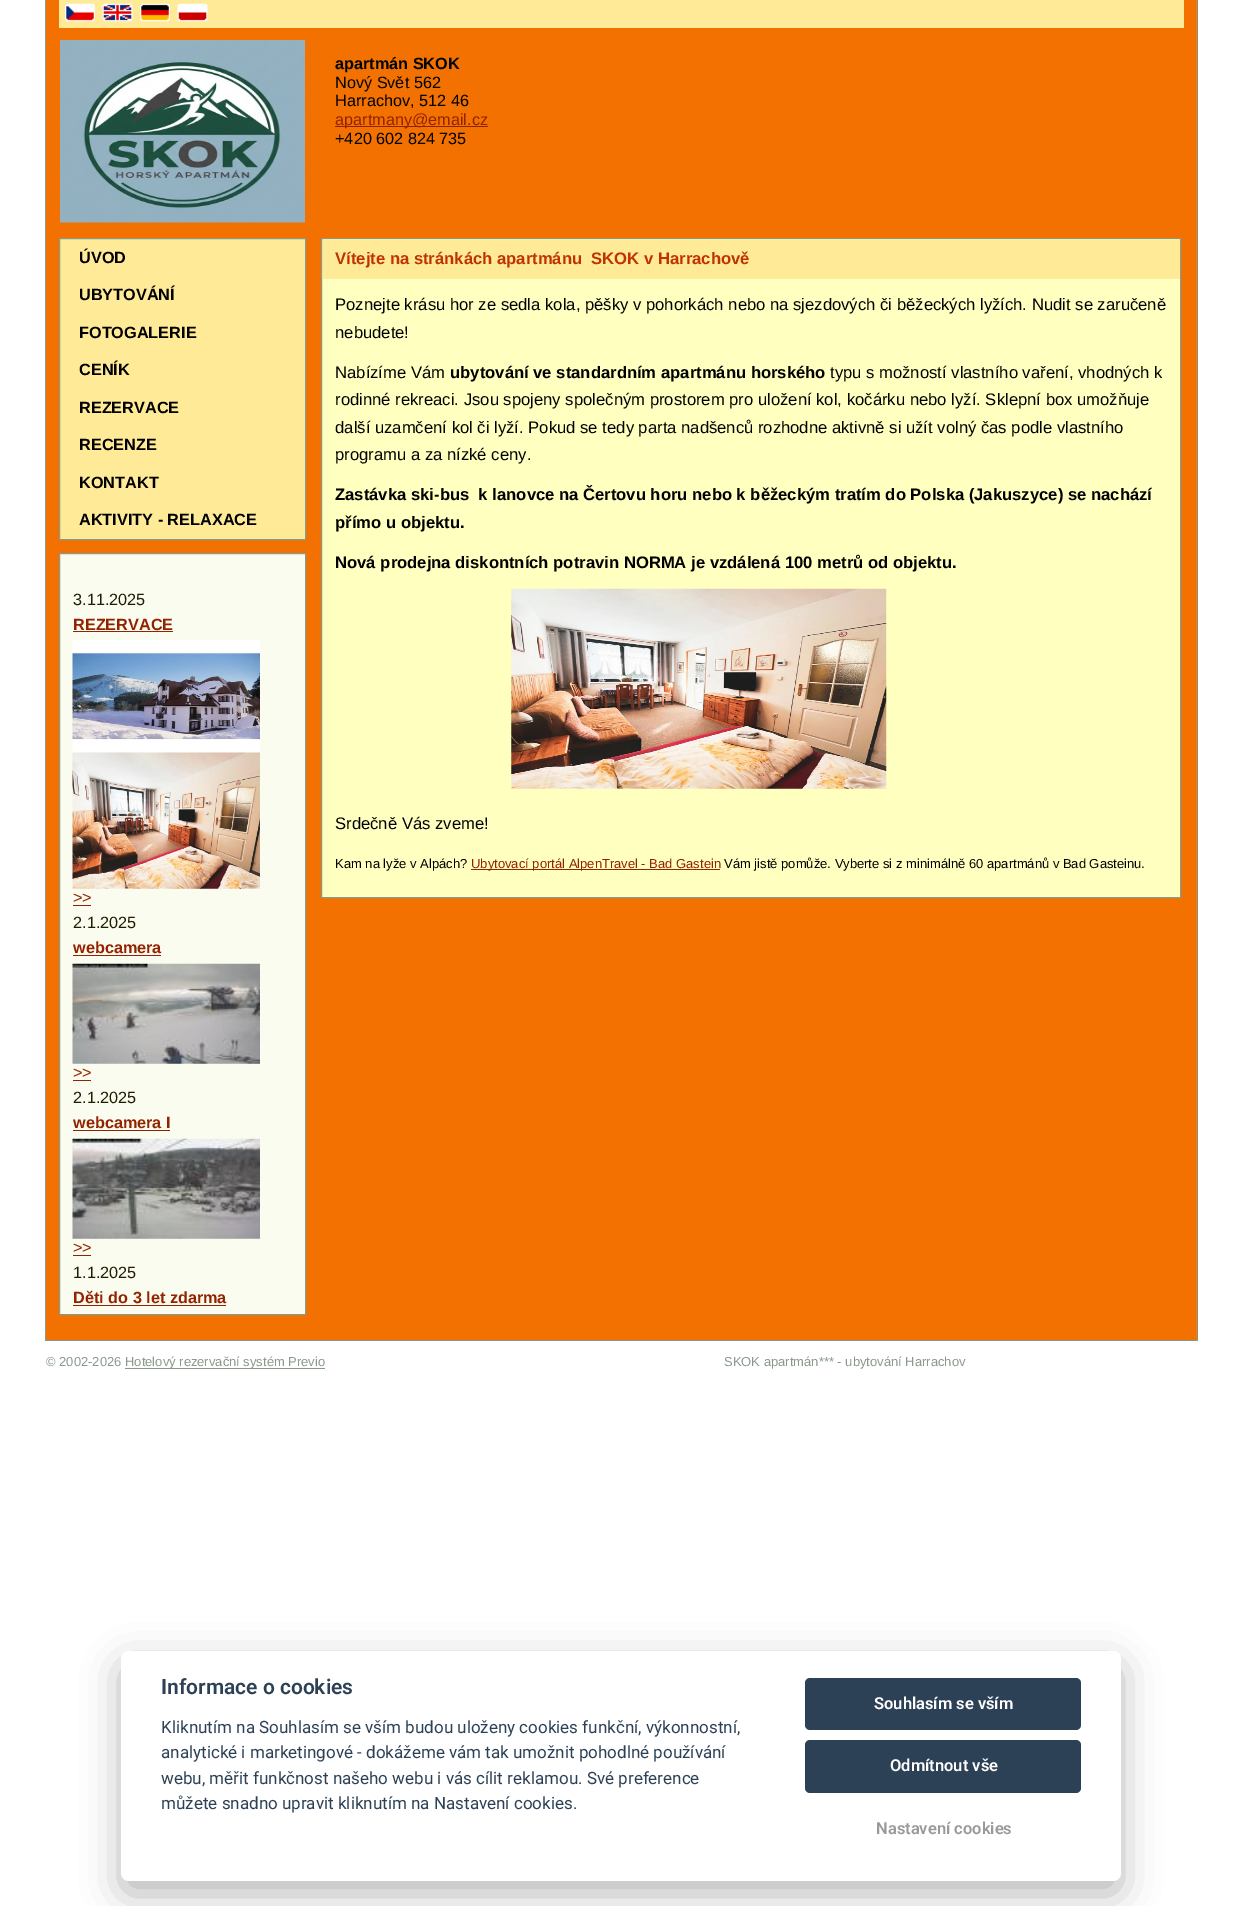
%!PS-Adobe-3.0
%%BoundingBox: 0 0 1242 1906
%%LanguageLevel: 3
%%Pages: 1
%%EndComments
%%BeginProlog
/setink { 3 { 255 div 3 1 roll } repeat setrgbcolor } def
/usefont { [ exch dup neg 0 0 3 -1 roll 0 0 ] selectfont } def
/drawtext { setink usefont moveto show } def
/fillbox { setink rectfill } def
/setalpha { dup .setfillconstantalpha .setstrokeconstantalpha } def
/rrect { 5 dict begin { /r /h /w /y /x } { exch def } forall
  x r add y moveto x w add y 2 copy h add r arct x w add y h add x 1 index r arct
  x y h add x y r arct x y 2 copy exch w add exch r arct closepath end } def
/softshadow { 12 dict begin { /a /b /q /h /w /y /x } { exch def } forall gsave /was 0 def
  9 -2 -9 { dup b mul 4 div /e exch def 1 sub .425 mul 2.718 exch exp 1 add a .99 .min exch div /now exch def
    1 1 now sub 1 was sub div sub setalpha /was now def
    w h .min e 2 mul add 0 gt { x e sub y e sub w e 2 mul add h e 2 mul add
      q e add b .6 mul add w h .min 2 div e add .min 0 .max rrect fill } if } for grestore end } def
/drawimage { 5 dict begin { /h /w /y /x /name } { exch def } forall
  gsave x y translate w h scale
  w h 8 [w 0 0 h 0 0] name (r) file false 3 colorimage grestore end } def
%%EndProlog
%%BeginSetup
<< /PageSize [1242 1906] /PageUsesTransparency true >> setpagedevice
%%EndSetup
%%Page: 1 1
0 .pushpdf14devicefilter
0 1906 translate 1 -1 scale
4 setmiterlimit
0 0 1242 1906 255 255 255 fillbox
46 0 1152 1340 242 113 0 fillbox
1196 0 1 1341 137 153 139 fillbox
45 1340 1153 1 137 153 139 fillbox
45 0 1 1341 137 153 139 fillbox
59 0 1125 28 255 234 152 fillbox
(assets/img1.rgb) 65 3 30 19 drawimage
(assets/img2.rgb) 102 3 31 19 drawimage
(assets/img3.rgb) 140 3 30 19 drawimage
(assets/img4.rgb) 177 3 31 19 drawimage
(assets/img5.rgb) 60 40 245 183 drawimage
(apartmán SKOK) 335 69 /LiberationSans-Bold 16.25 0 0 0 drawtext
(Nový Svět 562) 335 88 /LiberationSans-Regular 16.25 0 0 0 drawtext
(Harrachov, 512 46) 335 106 /LiberationSans-Regular 16.25 0 0 0 drawtext
335 126 153 1 147 34 0 fillbox
(apartmany@email.cz) 335 125 /LiberationSans-Regular 16.25 147 34 0 drawtext
(+420 602 824 735) 335 144 /LiberationSans-Regular 16.25 0 0 0 drawtext
255 234 152 setink
59.5 238.5 moveto 305.5 238.5 lineto 305.5 539.5 lineto 59.5 539.5 lineto closepath gsave fill grestore
137 153 139 setink
stroke
(ÚVOD) 79 263 /LiberationSans-Bold 16.25 0 0 0 drawtext
(UBYTOVÁNÍ) 79 300 /LiberationSans-Bold 16.25 0 0 0 drawtext
(FOTOGALERIE) 79 338 /LiberationSans-Bold 16.25 0 0 0 drawtext
(CENÍK) 79 375 /LiberationSans-Bold 16.25 0 0 0 drawtext
(REZERVACE) 79 413 /LiberationSans-Bold 16.25 0 0 0 drawtext
(RECENZE) 79 450 /LiberationSans-Bold 16.25 0 0 0 drawtext
(KONTAKT) 79 488 /LiberationSans-Bold 16.25 0 0 0 drawtext
(AKTIVITY - RELAXACE) 79 525 /LiberationSans-Bold 16.25 0 0 0 drawtext
251 252 240 setink
59.5 553.5 moveto 305.5 553.5 lineto 305.5 1314.5 lineto 59.5 1314.5 lineto closepath gsave fill grestore
137 153 139 setink
stroke
(3.11.2025) 73 605 /LiberationSans-Regular 16.25 31 28 0 drawtext
(REZERVACE) 73 630 /LiberationSans-Bold 16.25 147 34 0 drawtext
73 631 100 1 147 34 0 fillbox
(assets/img6.rgb) 72 640 188 113 drawimage
(assets/img7.rgb) 72 752 188 137 drawimage
(>>) 73 903 /LiberationSans-Regular 16.25 147 34 0 drawtext
73 905 18 1 147 34 0 fillbox
(2.1.2025) 73 928 /LiberationSans-Regular 16.25 31 28 0 drawtext
(webcamera) 73 953 /LiberationSans-Bold 16.25 147 34 0 drawtext
73 955 88 1 147 34 0 fillbox
(assets/img8.rgb) 72 963 188 101 drawimage
(>>) 73 1078 /LiberationSans-Regular 16.25 147 34 0 drawtext
73 1080 18 1 147 34 0 fillbox
(2.1.2025) 73 1103 /LiberationSans-Regular 16.25 31 28 0 drawtext
(webcamera I) 73 1128 /LiberationSans-Bold 16.25 147 34 0 drawtext
73 1130 97 1 147 34 0 fillbox
(assets/img9.rgb) 72 1138 188 101 drawimage
(>>) 73 1253 /LiberationSans-Regular 16.25 147 34 0 drawtext
73 1255 18 1 147 34 0 fillbox
(1.1.2025) 73 1278 /LiberationSans-Regular 16.25 31 28 0 drawtext
(Děti do 3 let zdarma) 73 1303 /LiberationSans-Bold 16.25 147 34 0 drawtext
73 1305 153 1 147 34 0 fillbox
255 255 192 setink
321.5 238.5 moveto 1180.5 238.5 lineto 1180.5 897.5 lineto 321.5 897.5 lineto closepath gsave fill grestore
137 153 139 setink
stroke
323 239 857 40 255 234 152 fillbox
(Vítejte na stránkách apartmánu  SKOK v Harrachově) 335 264 /LiberationSans-Bold 16.65 191 51 0 drawtext
(Poznejte krásu hor ze sedla kola, pěšky v pohorkách nebo na sjezdových či běžeckých lyžích. Nudit se zaručeně) 335 310 /LiberationSans-Regular 16.65 0 0 0 drawtext
(nebudete!) 335 338 /LiberationSans-Regular 16.65 0 0 0 drawtext
(Nabízíme Vám) 335 378 /LiberationSans-Regular 16.65 0 0 0 drawtext
(ubytování ve standardním apartmánu horského) 450 378 /LiberationSans-Bold 16.65 0 0 0 drawtext
(typu s možností vlastního vaření, vhodných k) 830 378 /LiberationSans-Regular 16.65 0 0 0 drawtext
(rodinné rekreaci. Jsou spojeny společným prostorem pro uložení kol, kočárku nebo lyží. Sklepní box umožňuje) 335 405 /LiberationSans-Regular 16.65 0 0 0 drawtext
(další uzamčení kol či lyží. Pokud se tedy parta nadšenců rozhodne aktivně si užít volný čas podle vlastního) 335 433 /LiberationSans-Regular 16.65 0 0 0 drawtext
(programu a za nízké ceny.) 335 460 /LiberationSans-Regular 16.65 0 0 0 drawtext
(Zastávka ski-bus  k lanovce na Čertovu horu nebo k běžeckým tratím do Polska \(Jakuszyce\) se nachází) 335 500 /LiberationSans-Bold 16.65 0 0 0 drawtext
(přímo u objektu.) 335 528 /LiberationSans-Bold 16.65 0 0 0 drawtext
(Nová prodejna diskontních potravin NORMA je vzdálená 100 metrů od objektu.) 335 568 /LiberationSans-Bold 16.65 0 0 0 drawtext
(assets/img10.rgb) 511 588 376 201 drawimage
(Srdečně Vás zveme!) 335 829 /LiberationSans-Regular 16.65 0 0 0 drawtext
(Kam na lyže v Alpách?) 335 868 /LiberationSans-Regular 13 0 0 0 drawtext
471 869 249 1 147 34 0 fillbox
(Ubytovací portál AlpenTravel - Bad Gastein) 471 868 /LiberationSans-Regular 13 147 34 0 drawtext
(Vám jistě pomůže. Vyberte si z minimálně 60 apartmánů v Bad Gasteinu.) 724 868 /LiberationSans-Regular 13 0 0 0 drawtext
(© 2002-2026) 46 1366 /LiberationSans-Regular 13 137 153 139 drawtext
125 1368 200 1 137 153 139 fillbox
(Hotelový rezervační systém Previo) 125 1366 /LiberationSans-Regular 13 137 153 139 drawtext
(SKOK apartmán*** - ubytování Harrachov) 724 1366 /LiberationSans-Regular 13 137 153 139 drawtext
2 2 3 setink
121 1664 1000 230 8 19 0.28 softshadow
255 255 255 setink
121 1651 1000 230 8 rrect fill
(Informace o cookies) 161 1694 /Roboto-SemiBold 21 45 65 86 drawtext
(Kliknutím na Souhlasím se vším budou uloženy cookies funkční, výkonnostní,) 161 1733 /Roboto-Regular 17 45 65 86 drawtext
(analytické i marketingové - dokážeme vám tak umožnit pohodlné používání) 161 1758 /Roboto-Regular 17 45 65 86 drawtext
(webu, měřit funkčnost našeho webu i vás cílit reklamou. Své preference) 161 1784 /Roboto-Regular 17 45 65 86 drawtext
(můžete snadno upravit kliknutím na Nastavení cookies.) 161 1809 /Roboto-Regular 17 45 65 86 drawtext
805 1678 276 52 5 rrect fill
(Souhlasím se vším) 874 1709 /Roboto-SemiBold 16.5 255 255 255 drawtext
45 65 86 setink
805 1740 276 53 5 rrect fill
(Odmítnout vše) 890 1771 /Roboto-SemiBold 16.5 255 255 255 drawtext
(Nastavení cookies) 876 1834 /Roboto-SemiBold 16.5 153 153 153 drawtext
.poppdf14devicefilter showpage
%%EOF
